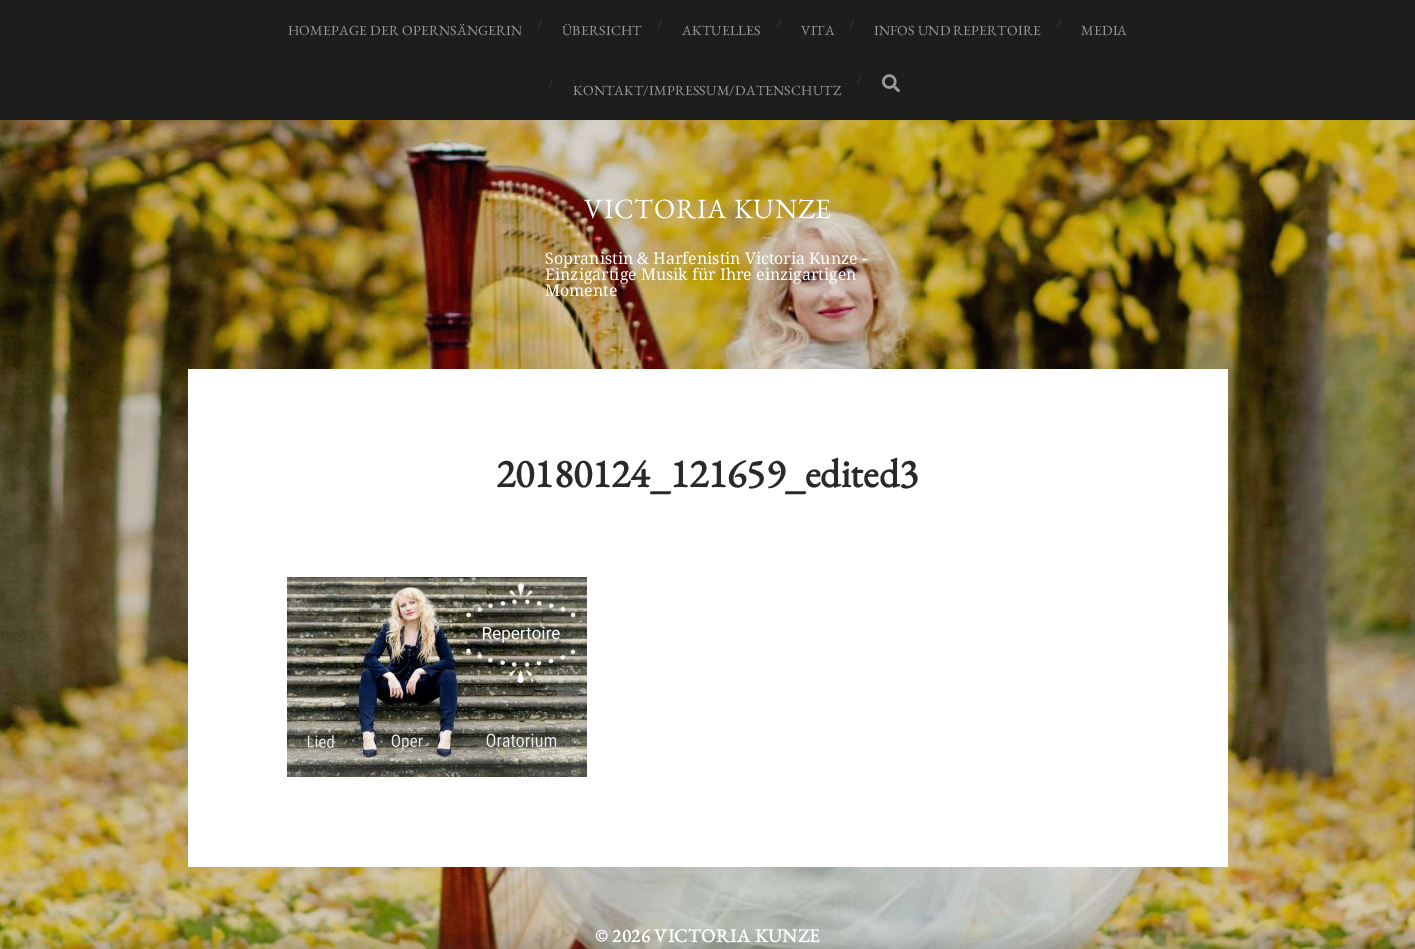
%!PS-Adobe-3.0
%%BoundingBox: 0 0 1415 949
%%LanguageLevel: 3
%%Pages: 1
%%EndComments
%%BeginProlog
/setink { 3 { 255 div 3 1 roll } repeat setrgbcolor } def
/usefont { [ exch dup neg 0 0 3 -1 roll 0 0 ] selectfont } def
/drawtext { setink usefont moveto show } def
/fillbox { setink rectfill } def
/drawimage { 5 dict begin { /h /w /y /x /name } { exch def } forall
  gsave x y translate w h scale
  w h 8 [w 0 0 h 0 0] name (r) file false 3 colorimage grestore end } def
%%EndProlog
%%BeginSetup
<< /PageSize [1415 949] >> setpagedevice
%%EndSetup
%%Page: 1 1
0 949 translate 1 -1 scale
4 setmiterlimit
0 0 1415 949 29 29 29 fillbox
/EBGaramond-Regular 14 usefont
153 153 153 setink
288 35 moveto 0.15 0 (HOMEPAGE DER OPERNSÄNGERIN) ashow
(/) 537 28 /EBGaramond-Regular 14 61 61 61 drawtext
153 153 153 setink
562 35 moveto 0.15 0 (ÜBERSICHT) ashow
(/) 657 28 /EBGaramond-Regular 14 61 61 61 drawtext
153 153 153 setink
682 35 moveto 0.15 0 (AKTUELLES) ashow
(/) 776 28 /EBGaramond-Regular 14 61 61 61 drawtext
153 153 153 setink
801 35 moveto 0.15 0 (VITA) ashow
(/) 849 28 /EBGaramond-Regular 14 61 61 61 drawtext
153 153 153 setink
874 35 moveto 0.15 0 (INFOS UND REPERTOIRE) ashow
(/) 1056 28 /EBGaramond-Regular 14 61 61 61 drawtext
153 153 153 setink
1081 35 moveto 0.15 0 (MEDIA) ashow
(/) 548 88 /EBGaramond-Regular 14 61 61 61 drawtext
153 153 153 setink
573 95 moveto 0.15 0 (KONTAKT/IMPRESSUM/DATENSCHUTZ) ashow
(/) 857 83 /EBGaramond-Regular 14 61 61 61 drawtext
(assets/img1.rgb) 882 74 18 19 drawimage
(assets/img2.rgb) 0 120 1415 829 drawimage
/EBGaramond-Regular 28 usefont
255 255 255 setink
584 218 moveto 0.75 0 (VICTORIA KUNZE) ashow
(Sopranistin & Harfenistin Victoria Kunze -) 545 264 /DroidSerif-Regular 16 255 255 255 drawtext
(Einzigartige Musik für Ihre einzigartigen) 545 280 /DroidSerif-Regular 16 255 255 255 drawtext
(Momente) 545 296 /DroidSerif-Regular 16 255 255 255 drawtext
188 369 1040 498 255 255 255 fillbox
(20180124_121659_edited3) 496 487 /EBGaramond-Bold 40 41 41 41 drawtext
(assets/img3.rgb) 287 577 300 200 drawimage
/EBGaramond-Bold 18.75 usefont
255 255 255 setink
595 942 moveto 0.5 0 (© 2026 VICTORIA KUNZE) ashow
showpage
%%EOF
